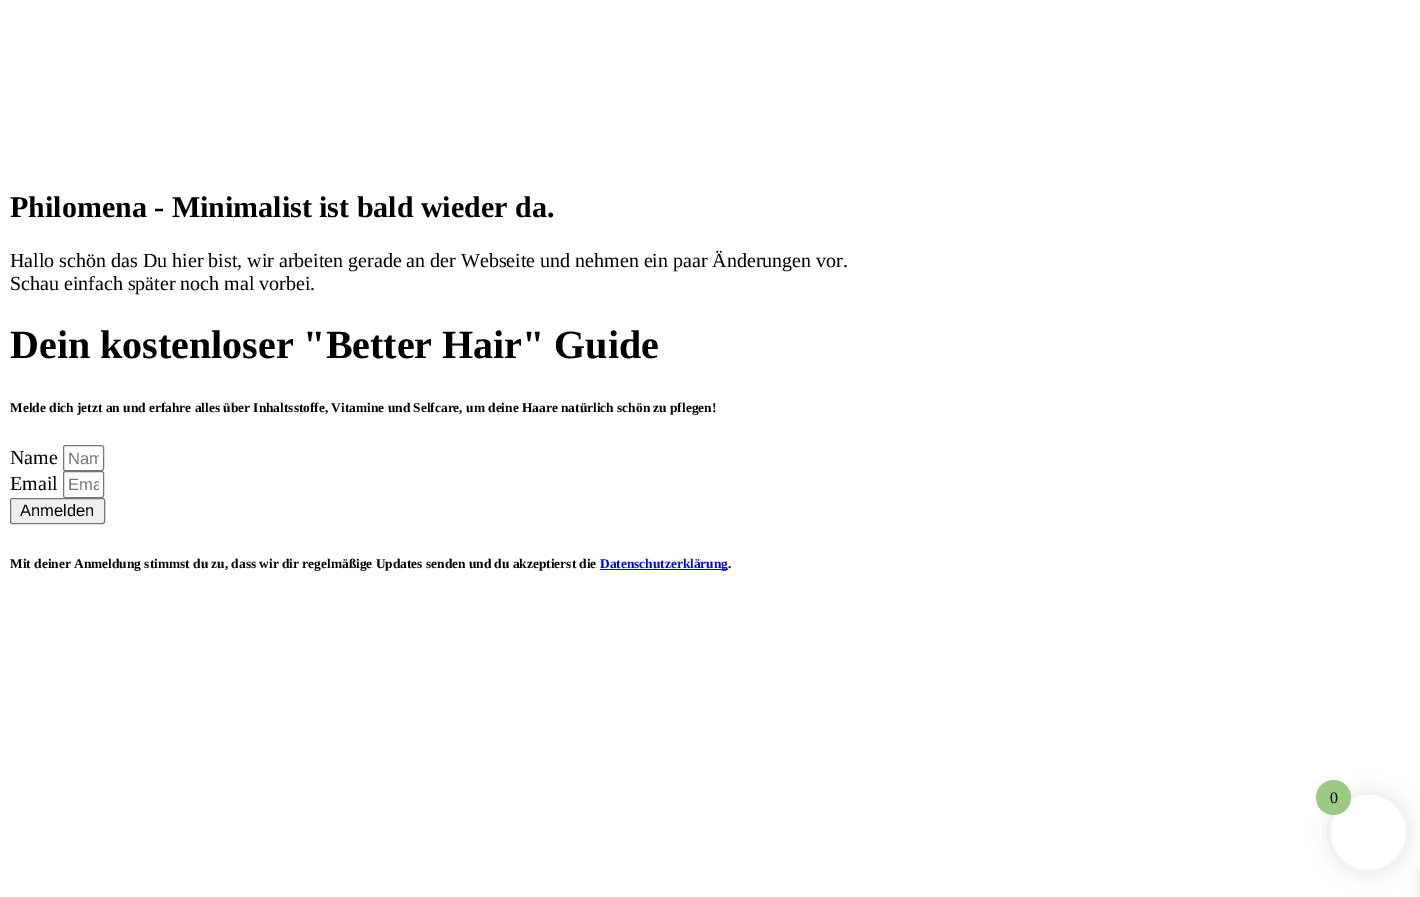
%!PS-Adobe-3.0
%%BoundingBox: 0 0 1420 897
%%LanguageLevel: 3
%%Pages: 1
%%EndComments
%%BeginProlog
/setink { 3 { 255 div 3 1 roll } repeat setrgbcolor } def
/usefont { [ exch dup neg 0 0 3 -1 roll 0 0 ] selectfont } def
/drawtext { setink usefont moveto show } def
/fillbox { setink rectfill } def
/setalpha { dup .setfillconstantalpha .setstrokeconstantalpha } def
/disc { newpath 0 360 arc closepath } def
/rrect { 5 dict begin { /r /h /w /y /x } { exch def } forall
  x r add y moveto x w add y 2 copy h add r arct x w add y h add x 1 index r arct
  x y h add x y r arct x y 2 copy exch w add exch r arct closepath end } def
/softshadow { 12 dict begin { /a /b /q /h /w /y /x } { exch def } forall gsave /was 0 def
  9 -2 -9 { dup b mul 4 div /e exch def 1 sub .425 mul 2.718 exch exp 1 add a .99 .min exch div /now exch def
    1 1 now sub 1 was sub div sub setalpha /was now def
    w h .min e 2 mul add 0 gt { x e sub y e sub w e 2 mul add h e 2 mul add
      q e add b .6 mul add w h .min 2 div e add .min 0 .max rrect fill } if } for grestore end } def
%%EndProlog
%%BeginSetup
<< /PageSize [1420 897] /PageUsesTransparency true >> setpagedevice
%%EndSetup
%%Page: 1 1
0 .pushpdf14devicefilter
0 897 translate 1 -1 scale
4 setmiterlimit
0 0 1420 897 255 255 255 fillbox
(Philomena - Minimalist ist bald wieder da.) 10 217 /LiberationSerif-Bold 30 0 0 0 drawtext
(Hallo schön das Du hier bist, wir arbeiten gerade an der Webseite und nehmen ein paar Änderungen vor.) 10 267 /LiberationSerif-Regular 20 0 0 0 drawtext
(Schau einfach später noch mal vorbei.) 10 290 /LiberationSerif-Regular 20 0 0 0 drawtext
(Dein kostenloser "Better Hair" Guide) 10 358 /LiberationSerif-Bold 40 0 0 0 drawtext
(Melde dich jetzt an und erfahre alles über Inhaltsstoffe, Vitamine und Selfcare, um deine Haare natürlich schön zu pflegen!) 10 412 /LiberationSerif-Bold 13.4 0 0 0 drawtext
(Name) 10 464 /LiberationSerif-Regular 20 0 0 0 drawtext
118 118 118 setink
63.5 445.5 40 25 2 rrect stroke
gsave
68 449 31 19 rectclip
(Nam) 68 464 /LiberationSans-Regular 16.5 117 117 117 drawtext
grestore
(Email) 10 490 /LiberationSerif-Regular 20 0 0 0 drawtext
118 118 118 setink
63.5 471.5 40 26 2 rrect stroke
gsave
68 475 31 19 rectclip
(Ema) 68 490 /LiberationSans-Regular 16.5 117 117 117 drawtext
grestore
239 239 239 setink
10.5 498.5 94 25 2 rrect gsave fill grestore
118 118 118 setink
stroke
(Anmelden) 20 516 /LiberationSans-Regular 16.5 0 0 0 drawtext
(Mit deiner Anmeldung stimmst du zu, dass wir dir regelmäßige Updates senden und du akzeptierst die) 10 568 /LiberationSerif-Bold 13.4 0 0 0 drawtext
600 569 128 1 0 0 238 fillbox
(Datenschutzerklärung) 600 568 /LiberationSerif-Bold 13.4 0 0 238 drawtext
(.) 728 568 /LiberationSerif-Bold 13.4 0 0 0 drawtext
1329 793 80 80 40 9.5 0.1 softshadow
1420 871 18 25 0 6 0.1 softshadow
255 255 255 setink
1368.5 832.5 37.5 disc fill
156 202 133 setink
1333.5 797.5 17.5 disc fill
(0) 1330 803 /LiberationSerif-Regular 16 0 0 0 drawtext
.poppdf14devicefilter showpage
%%EOF
